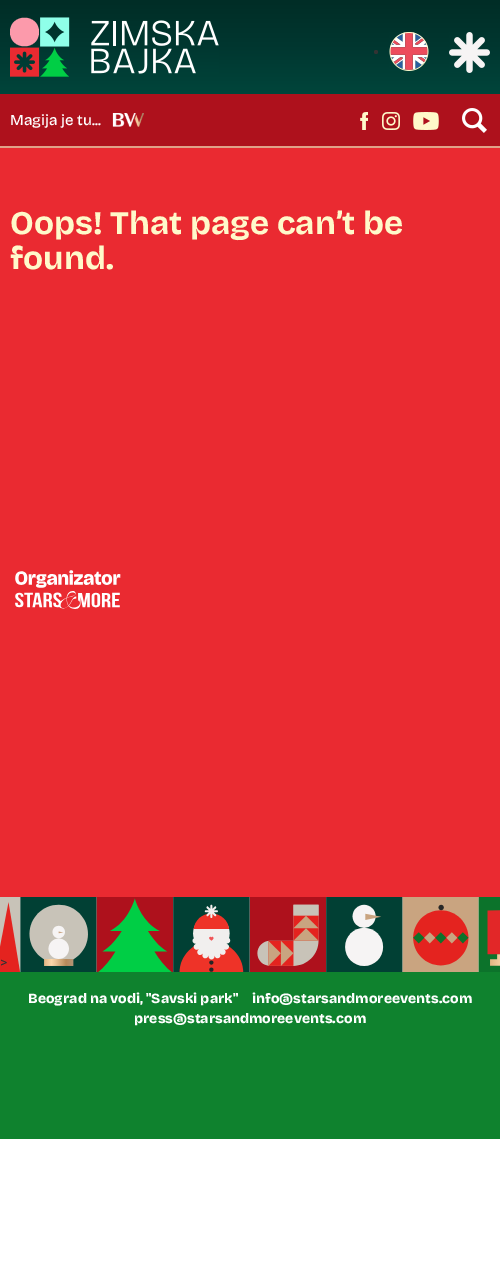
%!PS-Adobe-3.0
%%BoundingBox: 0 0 500 1281
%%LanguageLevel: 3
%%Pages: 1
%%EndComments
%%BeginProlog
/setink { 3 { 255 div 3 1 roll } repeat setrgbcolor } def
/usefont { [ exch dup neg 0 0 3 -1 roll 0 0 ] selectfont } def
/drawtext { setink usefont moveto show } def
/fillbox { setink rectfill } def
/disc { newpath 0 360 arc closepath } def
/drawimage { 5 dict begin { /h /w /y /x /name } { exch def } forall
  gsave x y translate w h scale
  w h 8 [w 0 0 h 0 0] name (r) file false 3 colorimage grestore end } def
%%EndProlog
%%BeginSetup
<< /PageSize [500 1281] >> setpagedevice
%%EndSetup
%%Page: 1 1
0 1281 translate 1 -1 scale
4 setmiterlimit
0 0 500 1281 255 255 255 fillbox
gsave 0 0 moveto 500 0 lineto 500 94 lineto 0 94 lineto closepath clip newpath
<< /ShadingType 2 /ColorSpace /DeviceRGB /Coords [250 0 250 94] /Extend [true true] /Function << /FunctionType 3 /Domain [0 1] /Functions [<< /FunctionType 2 /Domain [0 1] /C0 [0 0.176 0.149] /C1 [0 0.216 0.188] /N 1 >> << /FunctionType 2 /Domain [0 1] /C0 [0 0.216 0.188] /C1 [0 0.271 0.231] /N 1 >>] /Bounds [0.5] /Encode [0 1 0 1] >> >> shfill grestore
252 154 171 setink
39 32 moveto 39 51 10 51 10 32 curveto 10 13 39 13 39 32 curveto closepath fill
(assets/img1.rgb) 40 17 30 30 drawimage
(assets/img2.rgb) 10 47 30 30 drawimage
(assets/img3.rgb) 40 47 29 30 drawimage
(assets/img4.rgb) 91 20 128 54 drawimage
51 51 51 setink
376 52 2 disc fill
(assets/img5.rgb) 389 32 40 39 drawimage
(assets/img6.rgb) 449 32 41 41 drawimage
0 94 500 52 174 17 28 fillbox
0 146 500 2 225 162 137 fillbox
(Magija je tu...) 10 125 /BricolageGrotesque-Medium 15 255 255 255 drawtext
(assets/img7.rgb) 112 113 32 14 drawimage
(assets/img8.rgb) 360 112 8 18 drawimage
(assets/img9.rgb) 382 112 18 18 drawimage
(assets/img10.rgb) 413 112 26 18 drawimage
(assets/img11.rgb) 462 108 25 25 drawimage
0 148 500 749 234 42 49 fillbox
(Oops! That page can’t be) 10 234 /BricolageGrotesque-Bold 33 255 249 202 drawtext
(found.) 10 269 /BricolageGrotesque-Bold 33 255 249 202 drawtext
(assets/img12.rgb) 15 570 106 39 drawimage
(assets/img13.rgb) 0 897 500 75 drawimage
(>) 0 967 /Roboto-Regular 14 51 51 51 drawtext
0 972 500 167 15 130 46 fillbox
(Beograd na vodi, "Savski park") 28 1003 /BricolageGrotesque-ExtraBold 14 255 255 255 drawtext
(info@starsandmoreevents.com) 252 1003 /BricolageGrotesque-ExtraBold 14 255 255 255 drawtext
(press@starsandmoreevents.com) 134 1023 /BricolageGrotesque-ExtraBold 14 255 255 255 drawtext
showpage
%%EOF
